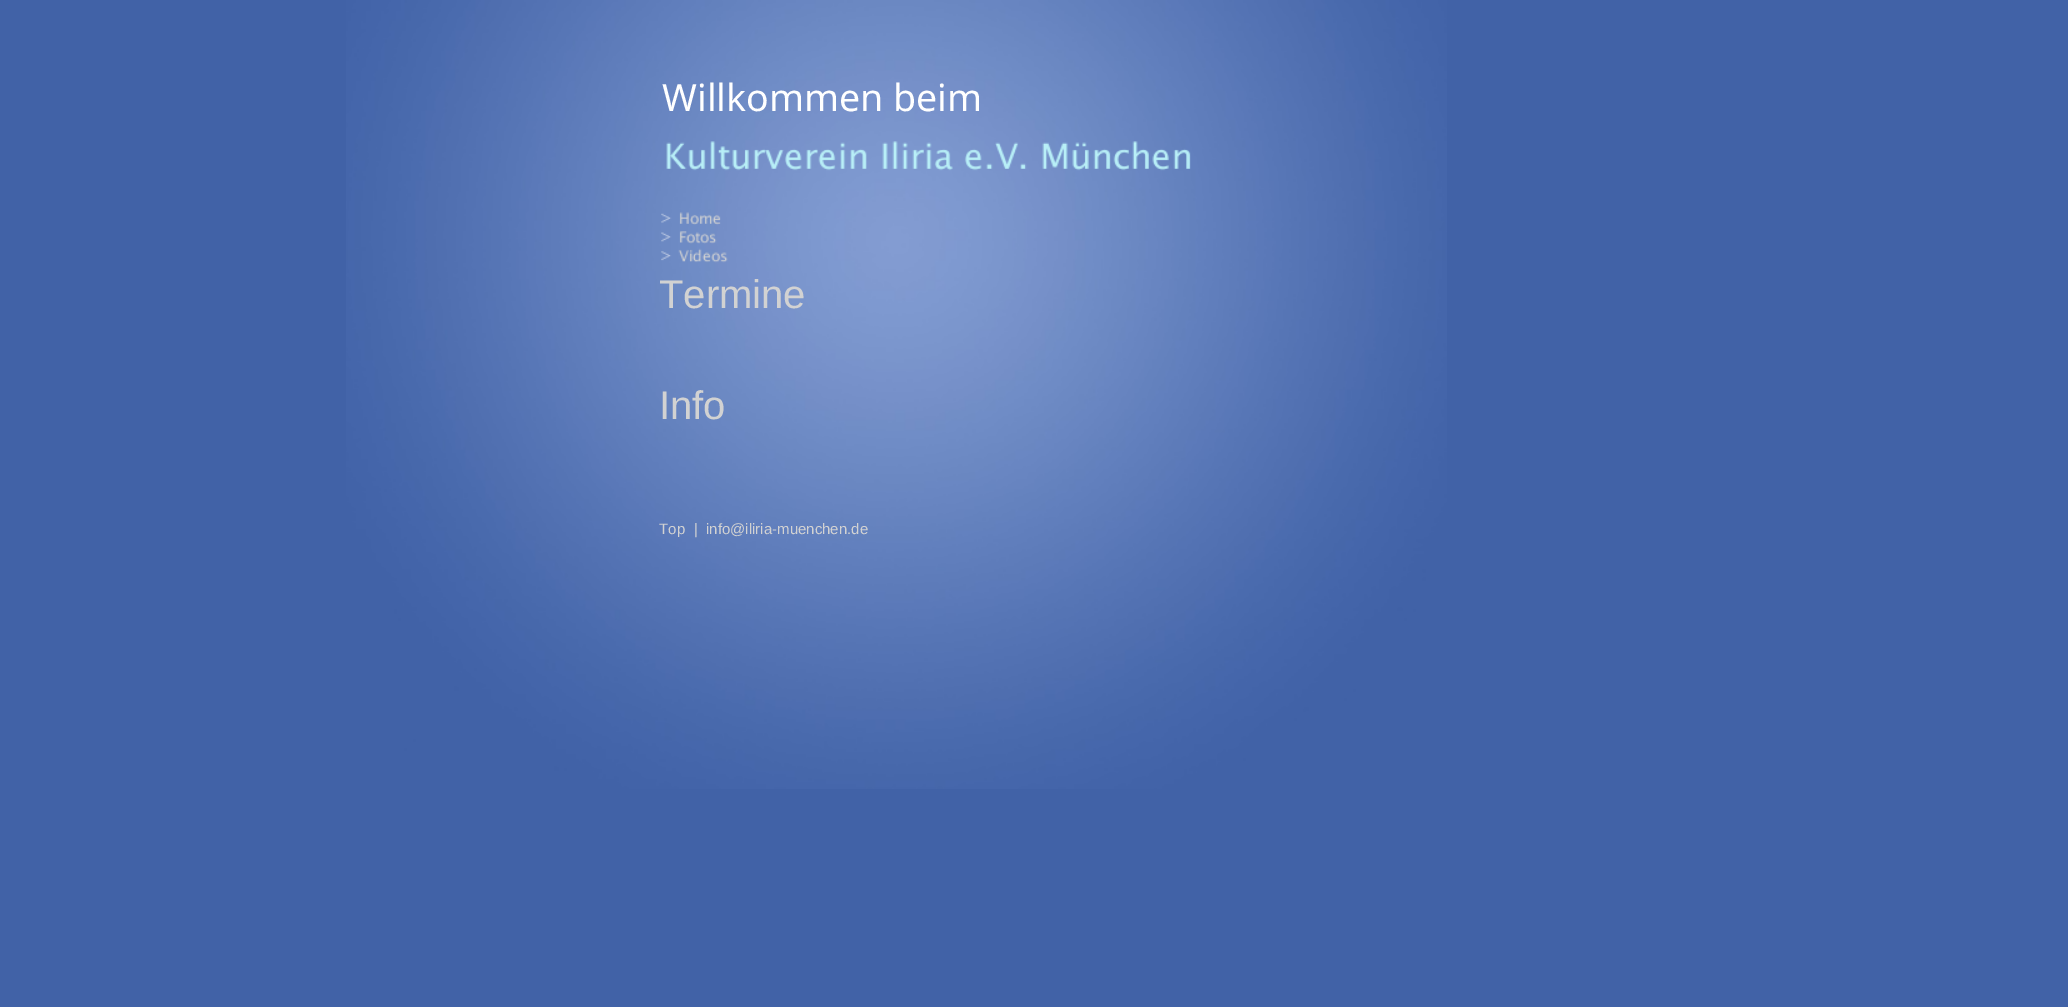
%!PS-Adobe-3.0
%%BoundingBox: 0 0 2068 1007
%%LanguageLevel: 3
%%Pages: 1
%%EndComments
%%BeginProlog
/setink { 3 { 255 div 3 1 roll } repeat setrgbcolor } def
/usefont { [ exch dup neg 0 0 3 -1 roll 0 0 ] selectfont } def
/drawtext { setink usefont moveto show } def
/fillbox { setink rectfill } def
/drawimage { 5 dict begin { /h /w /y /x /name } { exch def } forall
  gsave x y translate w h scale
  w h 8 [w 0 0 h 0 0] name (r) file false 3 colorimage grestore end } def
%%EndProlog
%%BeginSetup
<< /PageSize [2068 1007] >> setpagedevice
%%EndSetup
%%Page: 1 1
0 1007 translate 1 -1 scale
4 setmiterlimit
0 0 2068 1007 65 98 167 fillbox
(assets/img1.rgb) 346 0 1101 789 drawimage
(Willkommen beim) 662 111 /NotoSans-Regular 37.5 255 255 255 drawtext
(assets/img2.rgb) 666 141 525 30 drawimage
(assets/img3.rgb) 661 212 60 13 drawimage
(assets/img4.rgb) 661 231 56 13 drawimage
(assets/img5.rgb) 661 248 67 15 drawimage
(Termine) 659 308 /LiberationSans-Regular 40 210 210 210 drawtext
(Info) 659 419 /LiberationSans-Regular 40 210 210 210 drawtext
(Top) 659 534 /LiberationSans-Regular 15 210 210 210 drawtext
(|) 694 534 /LiberationSans-Regular 15 210 210 210 drawtext
(info@iliria-muenchen.de) 706 534 /LiberationSans-Regular 15 210 210 210 drawtext
showpage
%%EOF
